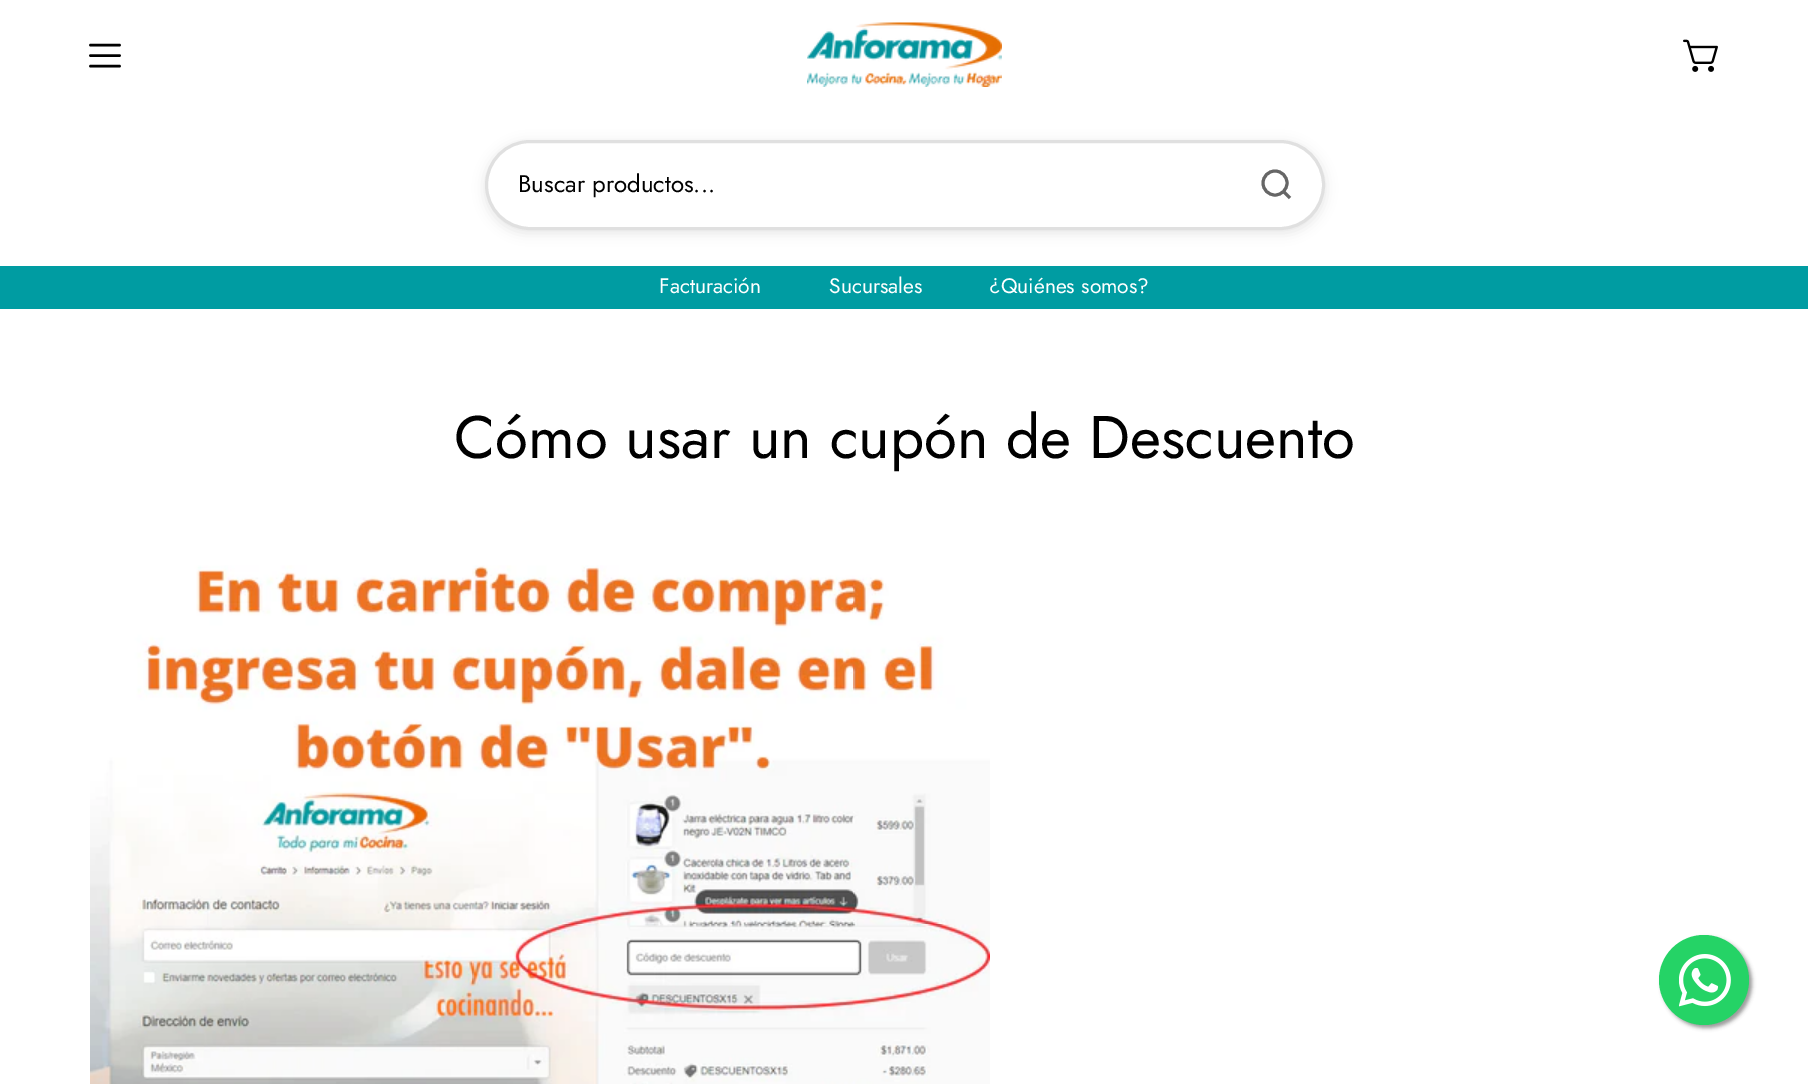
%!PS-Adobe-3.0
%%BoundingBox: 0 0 1808 1084
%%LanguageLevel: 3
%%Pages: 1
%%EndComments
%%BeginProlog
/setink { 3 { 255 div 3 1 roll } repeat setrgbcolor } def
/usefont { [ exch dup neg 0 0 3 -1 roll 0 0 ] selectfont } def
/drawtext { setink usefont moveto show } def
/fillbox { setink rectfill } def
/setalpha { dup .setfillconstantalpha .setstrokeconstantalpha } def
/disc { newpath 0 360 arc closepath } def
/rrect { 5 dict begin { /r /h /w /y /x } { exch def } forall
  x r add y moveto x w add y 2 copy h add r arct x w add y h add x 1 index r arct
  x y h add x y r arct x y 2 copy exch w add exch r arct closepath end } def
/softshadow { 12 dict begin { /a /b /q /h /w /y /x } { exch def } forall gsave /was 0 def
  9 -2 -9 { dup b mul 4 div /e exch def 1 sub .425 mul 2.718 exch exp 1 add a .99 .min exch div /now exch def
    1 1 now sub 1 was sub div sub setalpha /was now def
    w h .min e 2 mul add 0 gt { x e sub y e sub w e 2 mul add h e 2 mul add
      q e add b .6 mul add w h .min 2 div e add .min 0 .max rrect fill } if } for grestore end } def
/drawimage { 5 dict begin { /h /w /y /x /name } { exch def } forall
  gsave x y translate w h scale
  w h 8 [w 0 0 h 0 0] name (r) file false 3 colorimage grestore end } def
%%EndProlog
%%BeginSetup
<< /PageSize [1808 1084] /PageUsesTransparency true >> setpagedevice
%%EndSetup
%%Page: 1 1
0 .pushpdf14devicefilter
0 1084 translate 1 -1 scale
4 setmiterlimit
0 0 1808 1084 255 255 255 fillbox
0 0 0 setink
2.6 setlinewidth
1 setlinecap
1 setlinejoin
90.5 55.5 moveto 119.5 55.5 lineto 90.5 45 moveto 119.5 45 lineto 90.5 66 moveto 119.5 66 lineto stroke
(assets/img1.rgb) 807 22 195 65 drawimage
(assets/img2.rgb) 1683 39 35 33 drawimage
485 143 840 90 45 6 0.1 softshadow
255 255 255 setink
486.5 141.5 837 87 43.5 rrect gsave fill grestore
224 224 224 setink
3 setlinewidth
0 setlinecap
0 setlinejoin
stroke
(Buscar productos...) 518 192 /Jost-Regular 24 0 0 0 drawtext
102 102 102 setink
1275 183 12 disc stroke
1290 198 moveto 1283.5 191.5 lineto stroke
0 266 1808 43 0 156 162 fillbox
(Facturación) 659 293 /Jost-Regular 21 255 255 255 drawtext
(Sucursales) 829 293 /Jost-Regular 21 255 255 255 drawtext
(¿Quiénes somos?) 989 293 /Jost-Regular 21 255 255 255 drawtext
(Cómo usar un cupón de Descuento) 454 458 /Jost-Regular 60 0 0 0 drawtext
(assets/img3.rgb) 90 565 900 519 drawimage
153 153 153 setink
1662 938 90 90 45 2 1 softshadow
37 211 102 setink
1704 980 45 disc fill
(assets/img4.rgb) 1679 954 52 53 drawimage
.poppdf14devicefilter showpage
%%EOF
